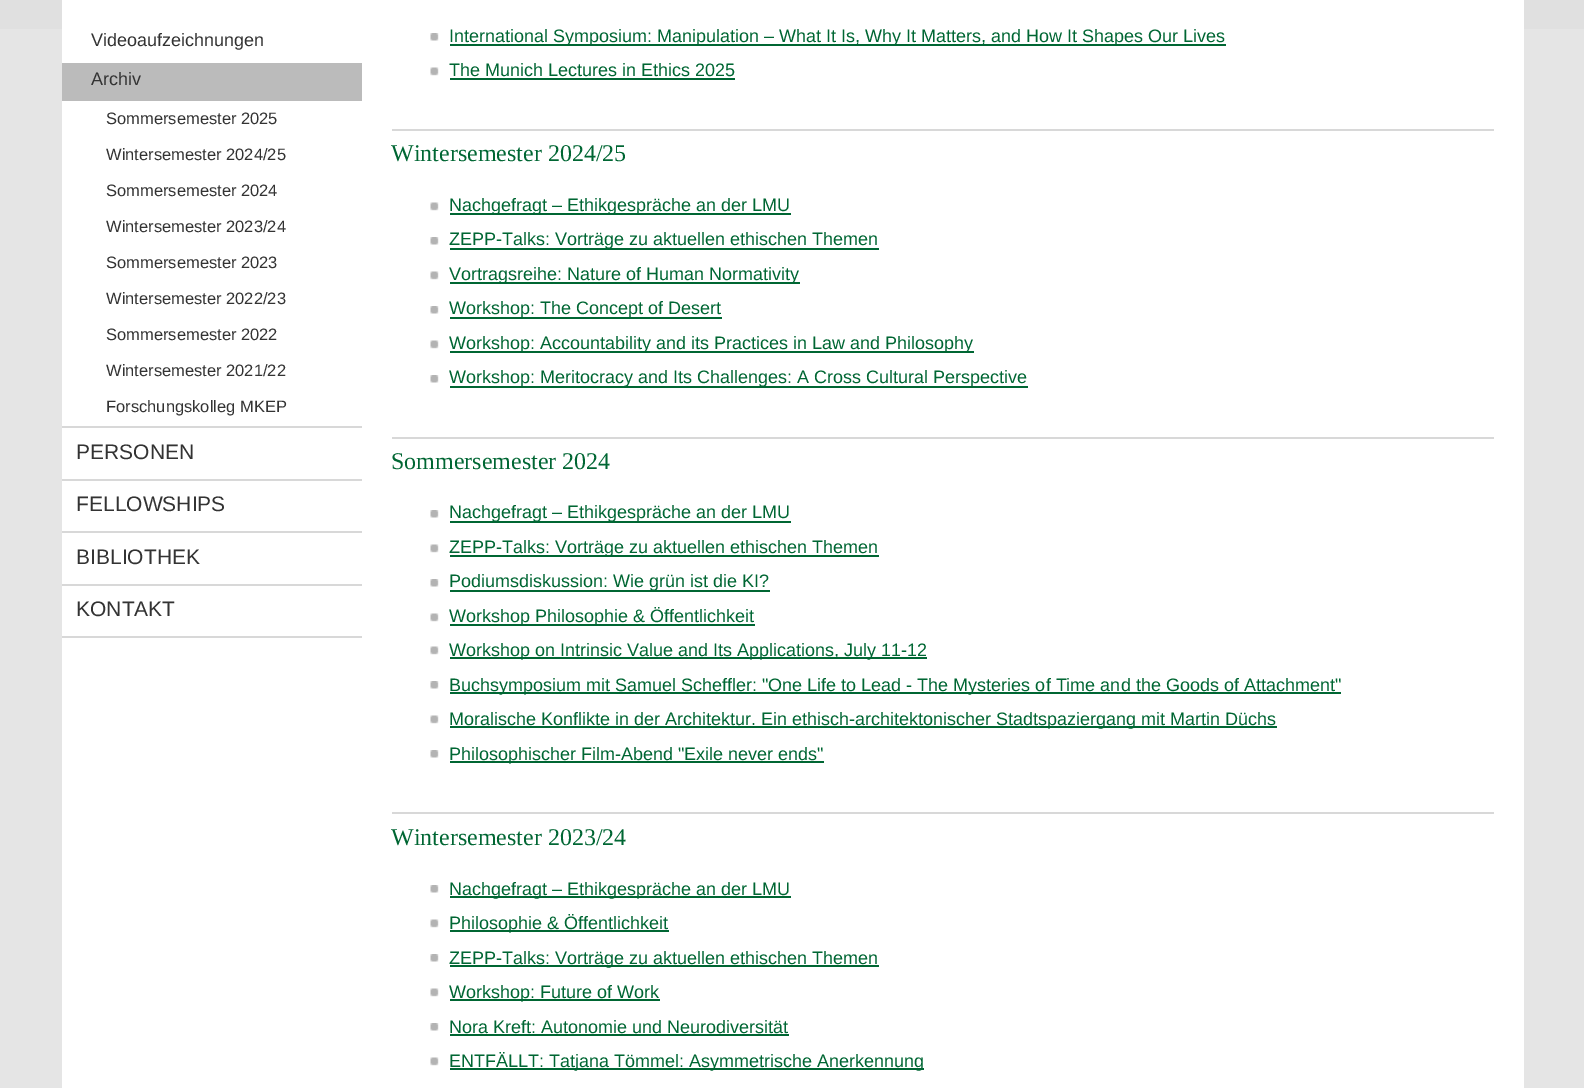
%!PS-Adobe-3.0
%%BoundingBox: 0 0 1584 1088
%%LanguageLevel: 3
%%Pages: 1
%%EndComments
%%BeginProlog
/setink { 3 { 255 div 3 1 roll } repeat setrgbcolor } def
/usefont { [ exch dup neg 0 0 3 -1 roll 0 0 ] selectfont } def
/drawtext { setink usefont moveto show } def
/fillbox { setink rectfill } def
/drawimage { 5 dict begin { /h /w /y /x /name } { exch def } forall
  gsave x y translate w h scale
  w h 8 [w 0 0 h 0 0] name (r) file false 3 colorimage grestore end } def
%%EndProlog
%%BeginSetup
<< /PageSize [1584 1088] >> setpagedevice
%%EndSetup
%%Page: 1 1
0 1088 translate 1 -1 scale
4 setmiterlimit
0 0 1584 1088 229 229 229 fillbox
0 0 1584 29 224 224 224 fillbox
62 0 1462 1088 255 255 255 fillbox
62 426 300 2 216 216 216 fillbox
(Videoaufzeichnungen) 91 46 /LiberationSans-Regular 18 51 51 51 drawtext
62 63 300 38 187 187 187 fillbox
(Archiv) 91 85 /LiberationSans-Regular 18 51 51 51 drawtext
(Sommersemester 2025) 106 124 /LiberationSans-Regular 16.5 51 51 51 drawtext
(Wintersemester 2024/25) 106 160 /LiberationSans-Regular 16.5 51 51 51 drawtext
(Sommersemester 2024) 106 196 /LiberationSans-Regular 16.5 51 51 51 drawtext
(Wintersemester 2023/24) 106 232 /LiberationSans-Regular 16.5 51 51 51 drawtext
(Sommersemester 2023) 106 268 /LiberationSans-Regular 16.5 51 51 51 drawtext
(Wintersemester 2022/23) 106 304 /LiberationSans-Regular 16.5 51 51 51 drawtext
(Sommersemester 2022) 106 340 /LiberationSans-Regular 16.5 51 51 51 drawtext
(Wintersemester 2021/22) 106 376 /LiberationSans-Regular 16.5 51 51 51 drawtext
(Forschungskolleg MKEP) 106 412 /LiberationSans-Regular 16.5 51 51 51 drawtext
62 479 300 2 216 216 216 fillbox
(PERSONEN) 76 459 /LiberationSans-Regular 21 51 51 51 drawtext
62 531 300 2 216 216 216 fillbox
(FELLOWSHIPS) 76 511 /LiberationSans-Regular 21 51 51 51 drawtext
62 584 300 2 216 216 216 fillbox
(BIBLIOTHEK) 76 564 /LiberationSans-Regular 21 51 51 51 drawtext
62 636 300 2 216 216 216 fillbox
(KONTAKT) 76 616 /LiberationSans-Regular 21 51 51 51 drawtext
(assets/img1.rgb) 430 33 9 8 drawimage
450 44 776 2 0 102 51 fillbox
(International Symposium: Manipulation – What It Is, Why It Matters, and How It Shapes Our Lives) 449 42 /LiberationSans-Regular 18 0 102 51 drawtext
(assets/img2.rgb) 430 67 9 9 drawimage
(The Munich Lectures in Ethics 2025) 449 76 /LiberationSans-Regular 18 0 102 51 drawtext
450 78 285 2 0 102 51 fillbox
392 129 1102 2 216 216 216 fillbox
(Wintersemester 2024/25) 391 161 /LiberationSerif-Regular 24 0 102 51 drawtext
(assets/img2.rgb) 430 202 9 9 drawimage
450 213 341 2 0 102 51 fillbox
(Nachgefragt – Ethikgespräche an der LMU) 449 211 /LiberationSans-Regular 18 0 102 51 drawtext
(assets/img1.rgb) 430 237 9 8 drawimage
450 248 429 2 0 102 51 fillbox
(ZEPP-Talks: Vorträge zu aktuellen ethischen Themen) 449 245 /LiberationSans-Regular 18 0 102 51 drawtext
(assets/img2.rgb) 430 271 9 9 drawimage
450 282 350 2 0 102 51 fillbox
(Vortragsreihe: Nature of Human Normativity) 449 280 /LiberationSans-Regular 18 0 102 51 drawtext
(assets/img1.rgb) 430 306 9 8 drawimage
450 317 272 2 0 102 51 fillbox
(Workshop: The Concept of Desert) 449 314 /LiberationSans-Regular 18 0 102 51 drawtext
(assets/img2.rgb) 430 340 9 9 drawimage
450 351 524 2 0 102 51 fillbox
(Workshop: Accountability and its Practices in Law and Philosophy) 449 349 /LiberationSans-Regular 18 0 102 51 drawtext
(assets/img1.rgb) 430 375 9 8 drawimage
450 386 578 2 0 102 51 fillbox
(Workshop: Meritocracy and Its Challenges: A Cross Cultural Perspective) 449 383 /LiberationSans-Regular 18 0 102 51 drawtext
392 437 1102 2 216 216 216 fillbox
(Sommersemester 2024) 391 469 /LiberationSerif-Regular 24 0 102 51 drawtext
(assets/img1.rgb) 430 510 9 8 drawimage
450 521 341 2 0 102 51 fillbox
(Nachgefragt – Ethikgespräche an der LMU) 449 518 /LiberationSans-Regular 18 0 102 51 drawtext
(assets/img2.rgb) 430 544 9 9 drawimage
450 555 429 2 0 102 51 fillbox
(ZEPP-Talks: Vorträge zu aktuellen ethischen Themen) 449 553 /LiberationSans-Regular 18 0 102 51 drawtext
(assets/img1.rgb) 430 579 9 8 drawimage
450 590 320 2 0 102 51 fillbox
(Podiumsdiskussion: Wie grün ist die KI?) 449 587 /LiberationSans-Regular 18 0 102 51 drawtext
(assets/img2.rgb) 430 613 9 9 drawimage
450 624 305 2 0 102 51 fillbox
(Workshop Philosophie & Öffentlichkeit) 449 622 /LiberationSans-Regular 18 0 102 51 drawtext
(assets/img2.rgb) 430 646 9 9 drawimage
450 657 477 2 0 102 51 fillbox
(Workshop on Intrinsic Value and Its Applications, July 11-12) 449 656 /LiberationSans-Regular 18 0 102 51 drawtext
(assets/img1.rgb) 430 681 9 8 drawimage
450 692 891 2 0 102 51 fillbox
(Buchsymposium mit Samuel Scheffler: "One Life to Lead - The Mysteries of Time and the Goods of Attachment") 449 691 /LiberationSans-Regular 18 0 102 51 drawtext
(assets/img2.rgb) 430 715 9 9 drawimage
450 726 827 2 0 102 51 fillbox
(Moralische Konflikte in der Architektur. Ein ethisch-architektonischer Stadtspaziergang mit Martin Düchs) 449 725 /LiberationSans-Regular 18 0 102 51 drawtext
(assets/img1.rgb) 430 750 9 8 drawimage
450 761 374 2 0 102 51 fillbox
(Philosophischer Film-Abend "Exile never ends") 449 760 /LiberationSans-Regular 18 0 102 51 drawtext
392 812 1102 2 216 216 216 fillbox
(Wintersemester 2023/24) 391 845 /LiberationSerif-Regular 24 0 102 51 drawtext
(assets/img1.rgb) 430 885 9 8 drawimage
450 896 341 2 0 102 51 fillbox
(Nachgefragt – Ethikgespräche an der LMU) 449 895 /LiberationSans-Regular 18 0 102 51 drawtext
(assets/img2.rgb) 430 919 9 9 drawimage
450 930 219 2 0 102 51 fillbox
(Philosophie & Öffentlichkeit) 449 929 /LiberationSans-Regular 18 0 102 51 drawtext
(assets/img1.rgb) 430 954 9 8 drawimage
450 965 429 2 0 102 51 fillbox
(ZEPP-Talks: Vorträge zu aktuellen ethischen Themen) 449 964 /LiberationSans-Regular 18 0 102 51 drawtext
(assets/img2.rgb) 430 988 9 9 drawimage
450 999 210 2 0 102 51 fillbox
(Workshop: Future of Work) 449 998 /LiberationSans-Regular 18 0 102 51 drawtext
(assets/img1.rgb) 430 1023 9 8 drawimage
(Nora Kreft: Autonomie und Neurodiversität) 449 1033 /LiberationSans-Regular 18 0 102 51 drawtext
450 1034 339 2 0 102 51 fillbox
(assets/img2.rgb) 430 1057 9 9 drawimage
450 1068 474 2 0 102 51 fillbox
(ENTFÄLLT: Tatjana Tömmel: Asymmetrische Anerkennung) 449 1067 /LiberationSans-Regular 18 0 102 51 drawtext
showpage
%%EOF
